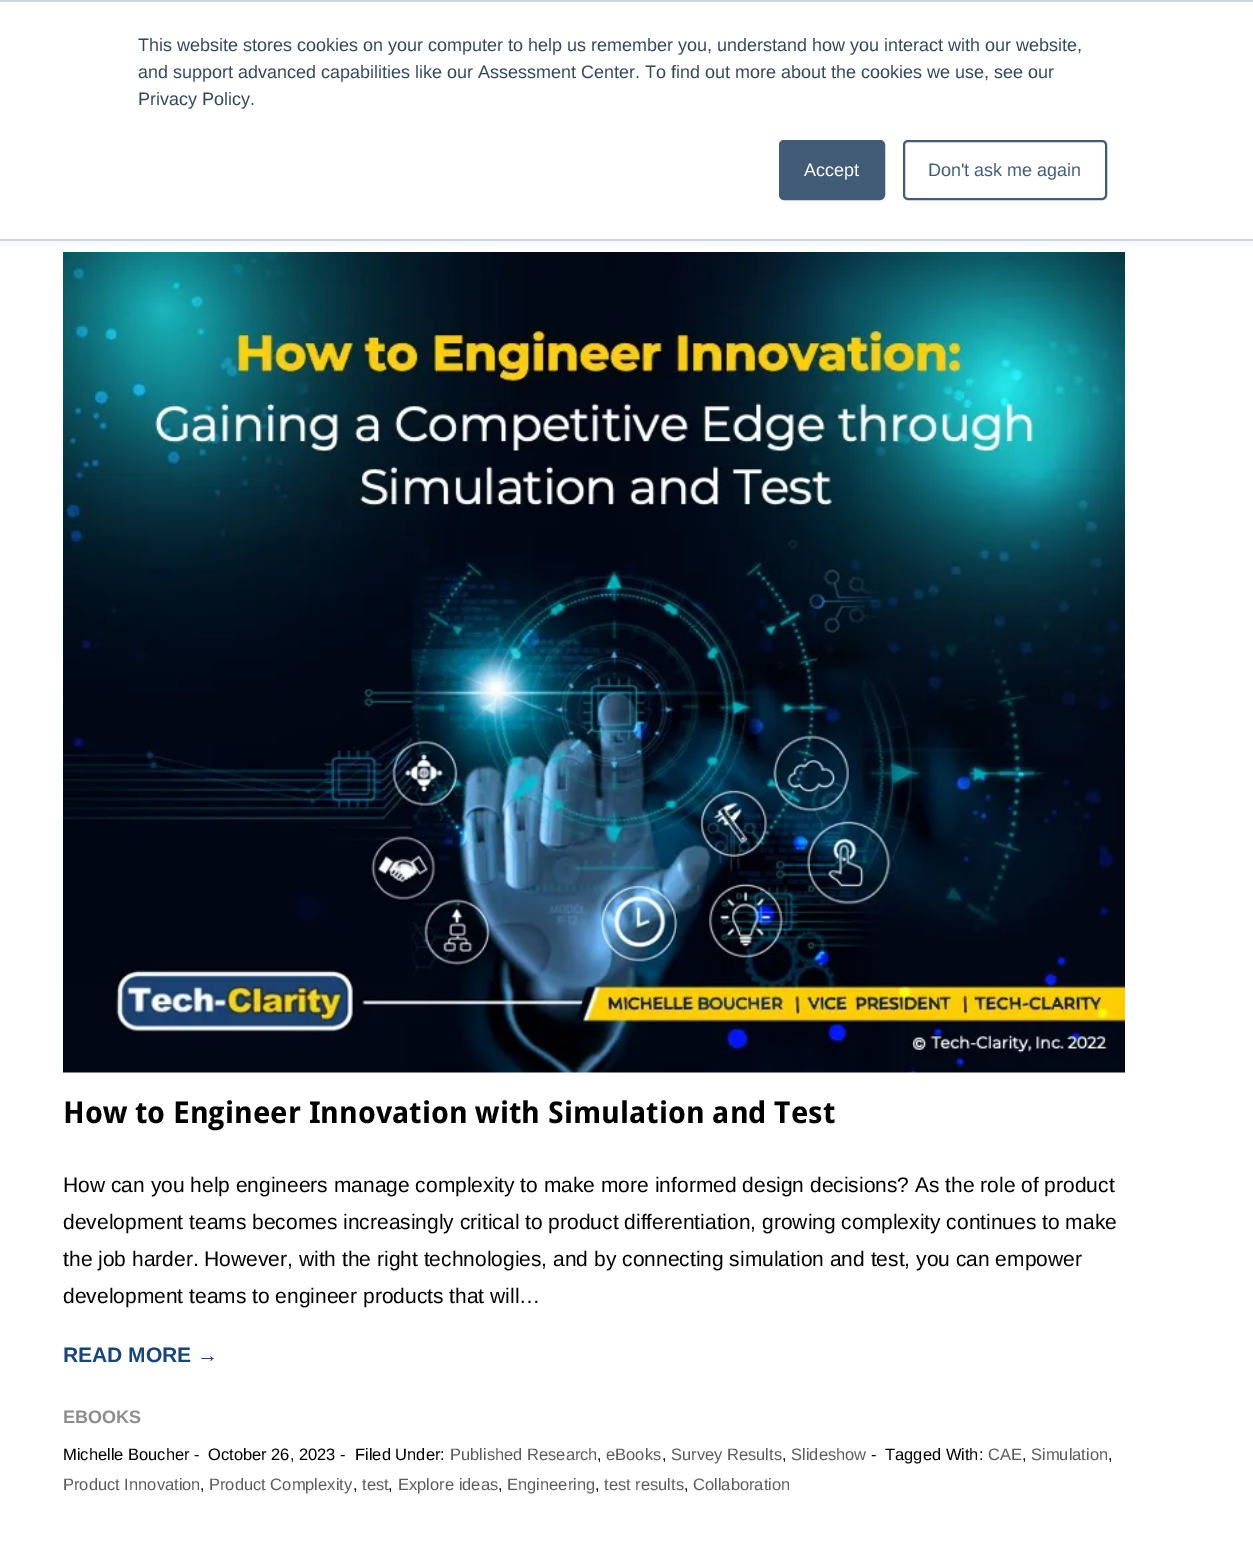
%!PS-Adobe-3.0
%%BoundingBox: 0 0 1253 1563
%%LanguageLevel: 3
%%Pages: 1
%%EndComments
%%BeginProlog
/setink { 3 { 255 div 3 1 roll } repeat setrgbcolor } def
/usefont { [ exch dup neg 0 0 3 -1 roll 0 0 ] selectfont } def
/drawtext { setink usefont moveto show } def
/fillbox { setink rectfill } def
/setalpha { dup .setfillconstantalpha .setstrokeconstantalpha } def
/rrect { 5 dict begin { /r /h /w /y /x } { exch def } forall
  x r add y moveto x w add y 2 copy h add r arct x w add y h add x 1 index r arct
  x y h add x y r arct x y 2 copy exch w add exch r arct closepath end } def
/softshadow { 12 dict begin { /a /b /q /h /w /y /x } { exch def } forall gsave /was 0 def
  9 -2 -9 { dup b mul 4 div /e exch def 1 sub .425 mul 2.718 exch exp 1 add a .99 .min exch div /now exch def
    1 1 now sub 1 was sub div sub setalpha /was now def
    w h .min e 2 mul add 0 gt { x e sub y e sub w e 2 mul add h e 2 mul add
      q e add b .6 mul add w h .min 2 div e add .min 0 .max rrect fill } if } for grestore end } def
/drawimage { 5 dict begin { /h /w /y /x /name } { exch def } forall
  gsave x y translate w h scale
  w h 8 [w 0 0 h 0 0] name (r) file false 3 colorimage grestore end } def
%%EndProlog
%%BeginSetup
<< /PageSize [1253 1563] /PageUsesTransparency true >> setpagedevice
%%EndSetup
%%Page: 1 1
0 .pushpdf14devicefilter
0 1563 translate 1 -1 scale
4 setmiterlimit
0 0 1253 1563 255 255 255 fillbox
(assets/img1.rgb) 63 252 1062 821 drawimage
234 240 246 setink
0 2 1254 240 0 4 1 softshadow
0 2 1253 237 255 255 255 fillbox
0 0 1253 2 203 214 226 fillbox
0 239 1253 2 203 214 226 fillbox
(This website stores cookies on your computer to help us remember you, understand how you interact with our website,) 138 51 /LiberationSans-Regular 18 51 71 91 drawtext
(and support advanced capabilities like our Assessment Center. To find out more about the cookies we use, see our) 138 78 /LiberationSans-Regular 18 51 71 91 drawtext
(Privacy Policy.) 138 105 /LiberationSans-Regular 18 51 71 91 drawtext
66 91 118 setink
780 141 104 58 4 rrect gsave fill grestore
2 setlinewidth
stroke
(Accept) 804 176 /LiberationSans-Regular 18 255 255 255 drawtext
66 91 118 setink
904 141 202 58 4 rrect stroke
(Don't ask me again) 928 176 /LiberationSans-Regular 18 66 91 118 drawtext
(How to Engineer Innovation with Simulation and Test) 63 1123 /DroidSans-Bold 30 0 0 0 drawtext
(How can you help engineers manage complexity to make more informed design decisions? As the role of product) 63 1192 /LiberationSans-Regular 21 0 0 0 drawtext
(development teams becomes increasingly critical to product differentiation, growing complexity continues to make) 63 1229 /LiberationSans-Regular 21 0 0 0 drawtext
(the job harder. However, with the right technologies, and by connecting simulation and test, you can empower) 63 1266 /LiberationSans-Regular 21 0 0 0 drawtext
(development teams to engineer products that will…) 63 1303 /LiberationSans-Regular 21 0 0 0 drawtext
(READ MORE →) 63 1362 /LiberationSans-Bold 21 25 69 119 drawtext
(EBOOKS) 63 1423 /LiberationSans-Bold 18 140 140 140 drawtext
(Michelle Boucher -) 63 1460 /LiberationSans-Regular 16.5 0 0 0 drawtext
(October 26, 2023 -) 208 1460 /LiberationSans-Regular 16.5 0 0 0 drawtext
(Filed Under:) 355 1460 /LiberationSans-Regular 16.5 0 0 0 drawtext
(Published Research) 450 1460 /LiberationSans-Regular 16.5 92 92 92 drawtext
(eBooks) 606 1460 /LiberationSans-Regular 16.5 92 92 92 drawtext
(Survey Results) 671 1460 /LiberationSans-Regular 16.5 92 92 92 drawtext
(Slideshow) 791 1460 /LiberationSans-Regular 16.5 92 92 92 drawtext
(-) 871 1460 /LiberationSans-Regular 16.5 0 0 0 drawtext
(Tagged With:) 885 1460 /LiberationSans-Regular 16.5 0 0 0 drawtext
(CAE) 988 1460 /LiberationSans-Regular 16.5 92 92 92 drawtext
(Simulation) 1031 1460 /LiberationSans-Regular 16.5 92 92 92 drawtext
(,) 597 1460 /LiberationSans-Regular 16.5 0 0 0 drawtext
(,) 662 1460 /LiberationSans-Regular 16.5 0 0 0 drawtext
(,) 782 1460 /LiberationSans-Regular 16.5 0 0 0 drawtext
(,) 1022 1460 /LiberationSans-Regular 16.5 0 0 0 drawtext
(,) 1108 1460 /LiberationSans-Regular 16.5 0 0 0 drawtext
(Product Innovation) 63 1490 /LiberationSans-Regular 16.5 92 92 92 drawtext
(,) 200 1490 /LiberationSans-Regular 16.5 0 0 0 drawtext
(Product Complexity) 209 1490 /LiberationSans-Regular 16.5 92 92 92 drawtext
(,) 353 1490 /LiberationSans-Regular 16.5 0 0 0 drawtext
(test) 362 1490 /LiberationSans-Regular 16.5 92 92 92 drawtext
(,) 388 1490 /LiberationSans-Regular 16.5 0 0 0 drawtext
(Explore ideas) 398 1490 /LiberationSans-Regular 16.5 92 92 92 drawtext
(,) 498 1490 /LiberationSans-Regular 16.5 0 0 0 drawtext
(Engineering) 507 1490 /LiberationSans-Regular 16.5 92 92 92 drawtext
(,) 595 1490 /LiberationSans-Regular 16.5 0 0 0 drawtext
(test results) 604 1490 /LiberationSans-Regular 16.5 92 92 92 drawtext
(,) 684 1490 /LiberationSans-Regular 16.5 0 0 0 drawtext
(Collaboration) 693 1490 /LiberationSans-Regular 16.5 92 92 92 drawtext
.poppdf14devicefilter showpage
%%EOF
